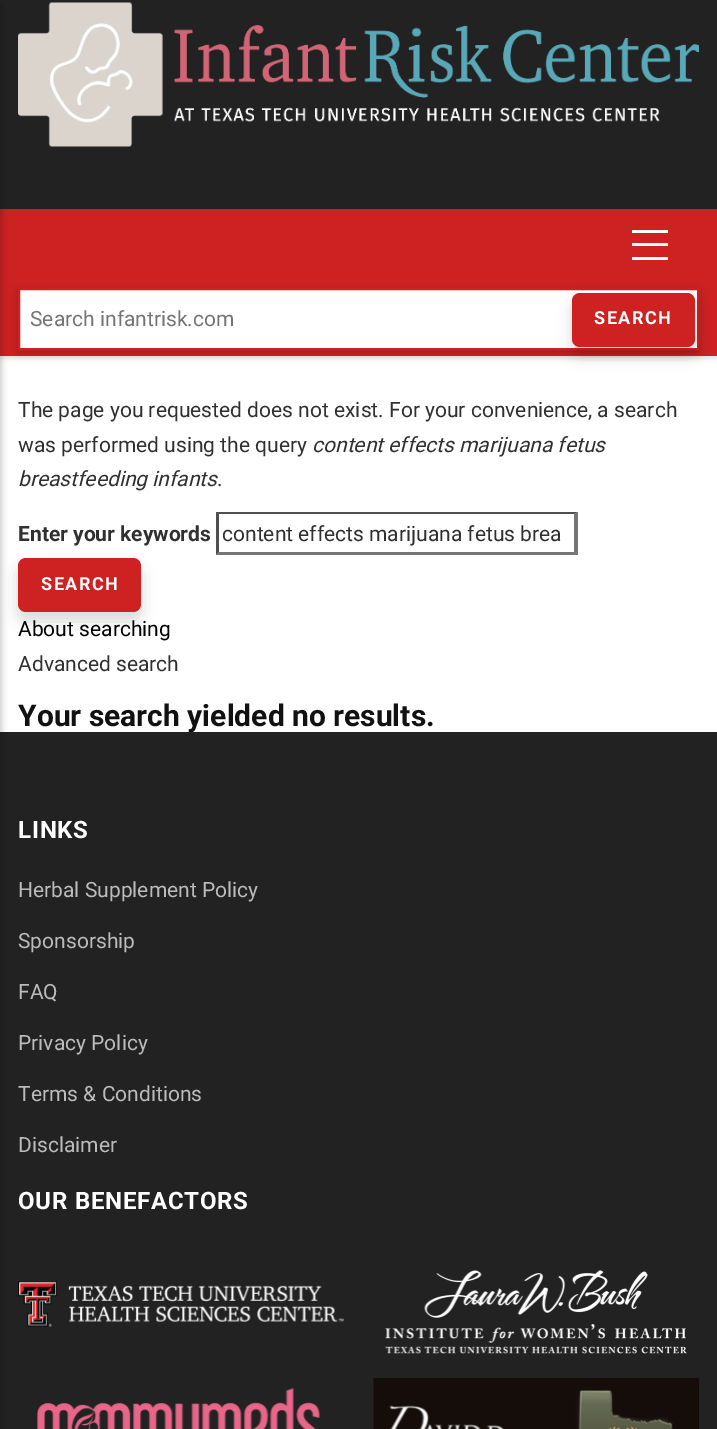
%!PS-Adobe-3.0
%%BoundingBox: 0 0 717 1429
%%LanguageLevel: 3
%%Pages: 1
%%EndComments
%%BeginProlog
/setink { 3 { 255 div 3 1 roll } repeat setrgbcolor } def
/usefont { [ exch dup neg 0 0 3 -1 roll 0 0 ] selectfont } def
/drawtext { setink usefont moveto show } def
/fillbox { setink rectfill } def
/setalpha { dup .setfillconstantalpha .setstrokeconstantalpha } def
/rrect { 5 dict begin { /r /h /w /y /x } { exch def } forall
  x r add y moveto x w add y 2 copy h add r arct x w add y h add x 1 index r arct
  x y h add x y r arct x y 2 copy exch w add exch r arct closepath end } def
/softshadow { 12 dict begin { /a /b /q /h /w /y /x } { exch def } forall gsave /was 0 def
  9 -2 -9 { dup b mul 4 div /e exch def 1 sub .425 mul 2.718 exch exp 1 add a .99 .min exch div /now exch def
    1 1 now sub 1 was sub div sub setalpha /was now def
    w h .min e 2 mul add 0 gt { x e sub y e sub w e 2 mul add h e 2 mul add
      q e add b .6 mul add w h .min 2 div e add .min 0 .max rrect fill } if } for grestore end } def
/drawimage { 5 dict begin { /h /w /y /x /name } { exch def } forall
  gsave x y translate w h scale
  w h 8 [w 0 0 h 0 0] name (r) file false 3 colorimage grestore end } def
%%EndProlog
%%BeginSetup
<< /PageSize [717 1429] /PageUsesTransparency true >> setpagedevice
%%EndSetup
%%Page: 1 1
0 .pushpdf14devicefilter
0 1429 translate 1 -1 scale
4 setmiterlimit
0 0 717 1429 255 255 255 fillbox
0 0 717 209 34 34 34 fillbox
(assets/img1.rgb) 18 2 681 145 drawimage
0 0 0 setink
0 212 717 147 0 2 0.1 softshadow
0 209 717 147 205 33 34 fillbox
0 732 717 697 34 34 34 fillbox
0 0 0 setink
-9 5 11 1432 0 3 0.2 softshadow
632 230 36 3 255 255 255 fillbox
632 243 36 3 255 255 255 fillbox
632 257 36 3 255 255 255 fillbox
0 0 0 setink
18 291 681 62 0 4 0.2 softshadow
255 255 255 setink
19 289 moveto 698 289 lineto 698 349 lineto 19 349 lineto closepath gsave fill grestore
205 33 34 setink
2 setlinewidth
stroke
(Search infantrisk.com) 30 326 /Roboto-Regular 21 117 117 117 drawtext
0 0 0 setink
572 302 123 54 8 7.5 0.15 softshadow
205 33 34 setink
572 293 123 54 8 rrect fill
/Roboto-Bold 18 usefont
255 255 255 setink
594 324 moveto 1.5 0 (SEARCH) ashow
(The page you requested does not exist. For your convenience, a search) 18 417 /Roboto-Regular 21 48 48 48 drawtext
(was performed using the query) 18 452 /Roboto-Regular 21 48 48 48 drawtext
(content effects marijuana fetus) 312 452 /Roboto-Italic 21 48 48 48 drawtext
(breastfeeding infants) 18 486 /Roboto-Italic 21 48 48 48 drawtext
(.) 217 486 /Roboto-Regular 21 48 48 48 drawtext
(Enter your keywords) 18 541 /Roboto-Bold 21 48 48 48 drawtext
79 79 79 setink
216 512 moveto 578 512 lineto 574 514 lineto 219 514 lineto closepath fill
118 118 118 setink
578 512 moveto 578 555 lineto 574 552 lineto 574 514 lineto closepath fill
578 555 moveto 216 555 lineto 219 552 lineto 574 552 lineto closepath fill
79 79 79 setink
216 555 moveto 216 512 lineto 219 514 lineto 219 552 lineto closepath fill
(content effects marijuana fetus brea) 222 541 /Roboto-Regular 21 48 48 48 drawtext
0 0 0 setink
18 567 123 54 8 7.5 0.15 softshadow
205 33 34 setink
18 558 123 54 8 rrect fill
/Roboto-Bold 18 usefont
255 255 255 setink
41 590 moveto 1.5 0 (SEARCH) ashow
(About searching) 18 636 /Roboto-Regular 21 0 0 0 drawtext
(Advanced search) 18 671 /Roboto-Regular 21 48 48 48 drawtext
gsave
0 378 717 354 rectclip
(Your search yielded no results.) 18 726 /Roboto-Bold 30 17 17 17 drawtext
grestore
/Roboto-Bold 24 usefont
255 255 255 setink
18 838 moveto 0.75 0 (LINKS) ashow
(Herbal Supplement Policy) 18 897 /Roboto-Regular 21 187 187 187 drawtext
(Sponsorship) 18 948 /Roboto-Regular 21 187 187 187 drawtext
(FAQ) 18 999 /Roboto-Regular 21 187 187 187 drawtext
(Privacy Policy) 18 1050 /Roboto-Regular 21 187 187 187 drawtext
(Terms & Conditions) 18 1101 /Roboto-Regular 21 187 187 187 drawtext
(Disclaimer) 18 1152 /Roboto-Regular 21 187 187 187 drawtext
/Roboto-Bold 24 usefont
255 255 255 setink
18 1209 moveto 0.75 0 (OUR BENEFACTORS) ashow
(assets/img2.rgb) 18 1281 326 46 drawimage
(assets/img3.rgb) 385 1270 302 84 drawimage
(assets/img4.rgb) 37 1388 283 41 drawimage
(assets/img5.rgb) 373 1378 326 51 drawimage
.poppdf14devicefilter showpage
%%EOF
